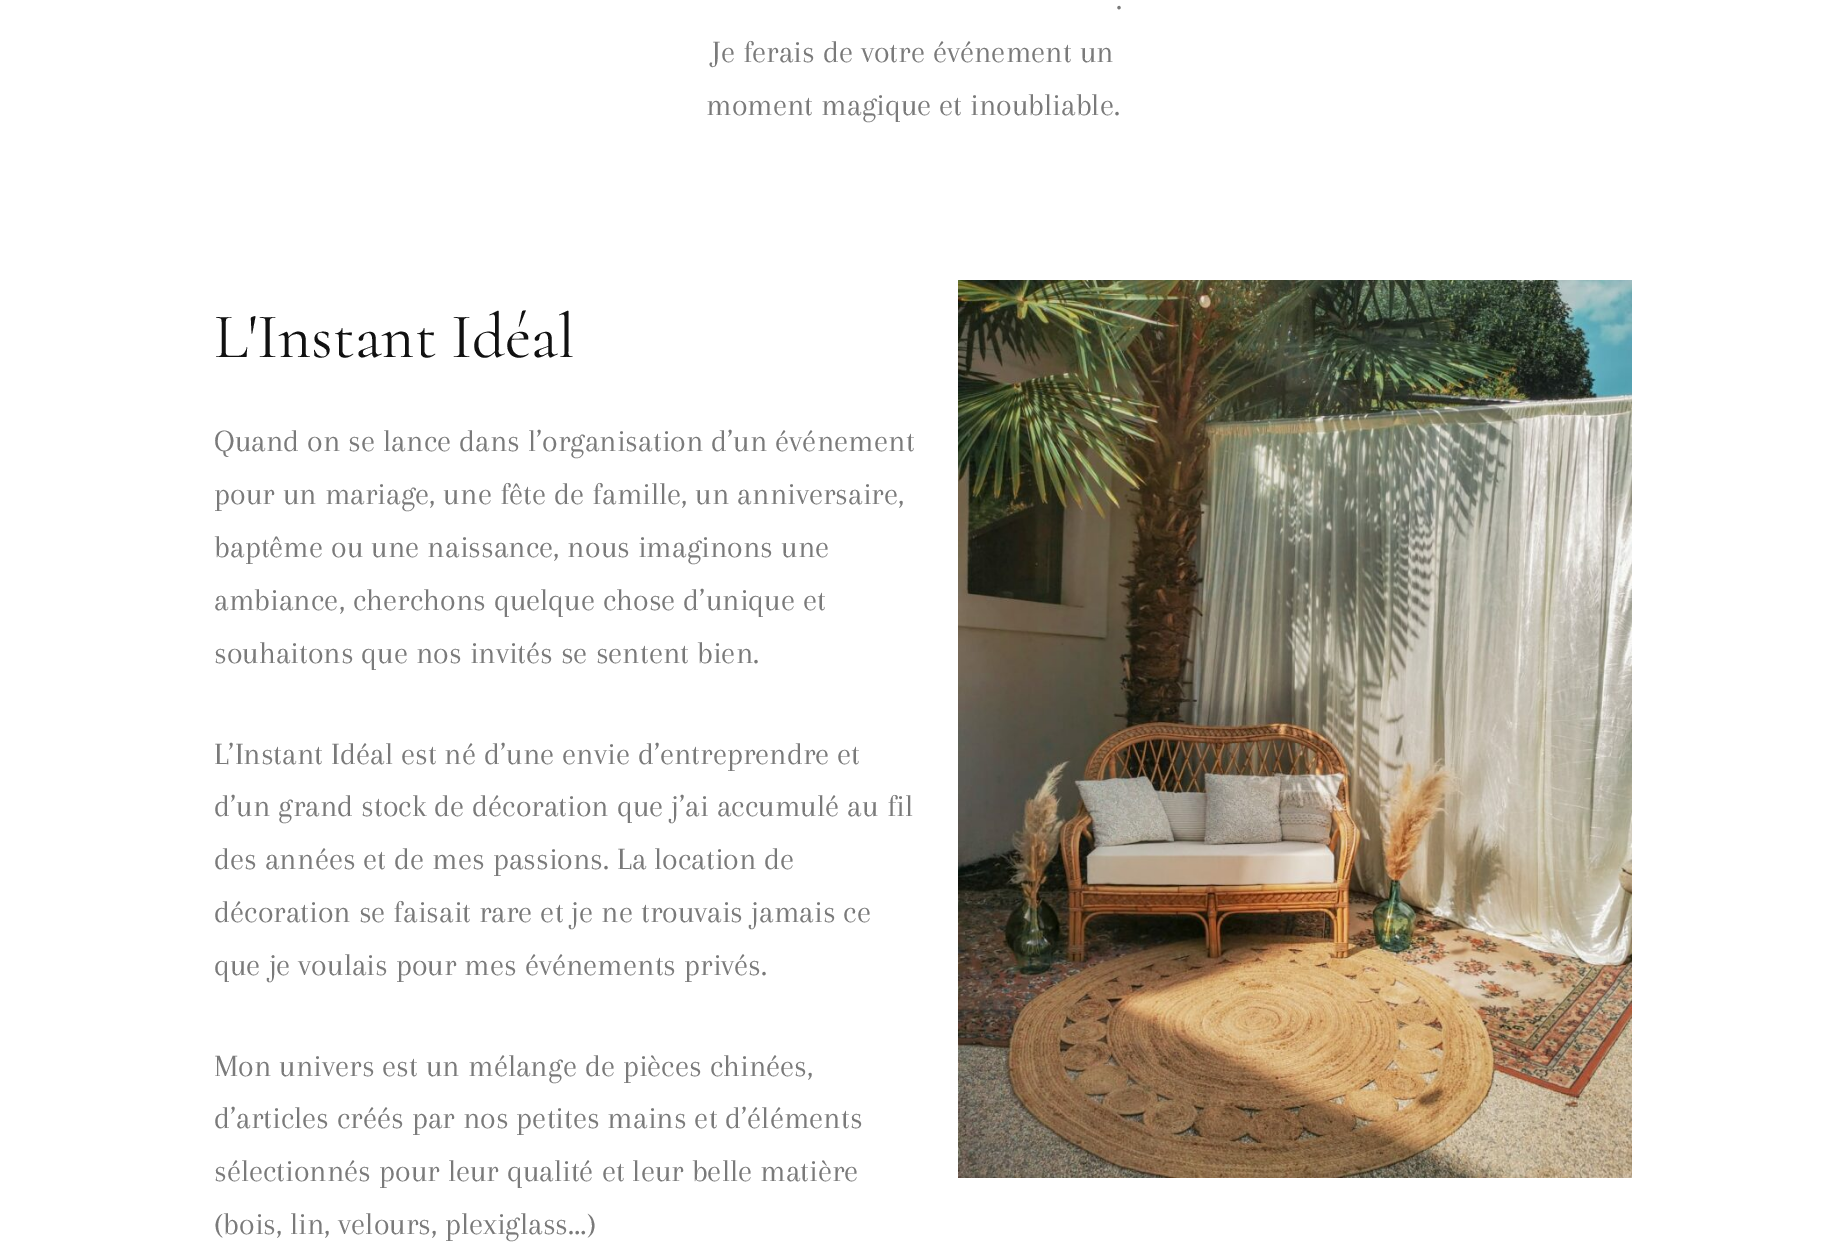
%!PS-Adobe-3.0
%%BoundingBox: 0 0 1826 1258
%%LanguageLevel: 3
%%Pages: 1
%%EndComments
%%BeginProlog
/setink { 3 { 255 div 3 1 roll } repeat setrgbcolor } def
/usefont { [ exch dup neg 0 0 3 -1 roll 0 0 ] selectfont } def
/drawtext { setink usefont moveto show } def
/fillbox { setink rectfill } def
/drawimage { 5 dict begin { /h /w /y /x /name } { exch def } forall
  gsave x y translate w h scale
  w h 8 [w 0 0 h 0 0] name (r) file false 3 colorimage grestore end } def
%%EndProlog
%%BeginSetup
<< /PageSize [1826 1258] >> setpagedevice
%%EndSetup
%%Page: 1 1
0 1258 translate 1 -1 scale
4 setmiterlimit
0 0 1826 1258 255 255 255 fillbox
(.) 1116 9 /Arapey-Regular 32 122 122 122 drawtext
(Je ferais de votre événement un) 712 62 /Arapey-Regular 32 122 122 122 drawtext
(moment magique et inoubliable.) 706 115 /Arapey-Regular 32 122 122 122 drawtext
(L'Instant Idéal) 214 357 /Cormorant-Regular 64 17 17 17 drawtext
(Quand on se lance dans l’organisation d’un événement) 214 451 /Arapey-Regular 32 122 122 122 drawtext
(pour un mariage, une fête de famille, un anniversaire,) 214 504 /Arapey-Regular 32 122 122 122 drawtext
(baptême ou une naissance, nous imaginons une) 214 557 /Arapey-Regular 32 122 122 122 drawtext
(ambiance, cherchons quelque chose d’unique et) 214 610 /Arapey-Regular 32 122 122 122 drawtext
(souhaitons que nos invités se sentent bien.) 214 663 /Arapey-Regular 32 122 122 122 drawtext
(L’Instant Idéal est né d’une envie d’entreprendre et) 214 764 /Arapey-Regular 32 122 122 122 drawtext
(d’un grand stock de décoration que j’ai accumulé au fil) 214 816 /Arapey-Regular 32 122 122 122 drawtext
(des années et de mes passions. La location de) 214 869 /Arapey-Regular 32 122 122 122 drawtext
(décoration se faisait rare et je ne trouvais jamais ce) 214 922 /Arapey-Regular 32 122 122 122 drawtext
(que je voulais pour mes événements privés.) 214 975 /Arapey-Regular 32 122 122 122 drawtext
(Mon univers est un mélange de pièces chinées,) 214 1076 /Arapey-Regular 32 122 122 122 drawtext
(d’articles créés par nos petites mains et d’éléments) 214 1128 /Arapey-Regular 32 122 122 122 drawtext
(sélectionnés pour leur qualité et leur belle matière) 214 1181 /Arapey-Regular 32 122 122 122 drawtext
(\(bois, lin, velours, plexiglass…\)) 214 1234 /Arapey-Regular 32 122 122 122 drawtext
(assets/img1.rgb) 958 280 674 898 drawimage
showpage
%%EOF
